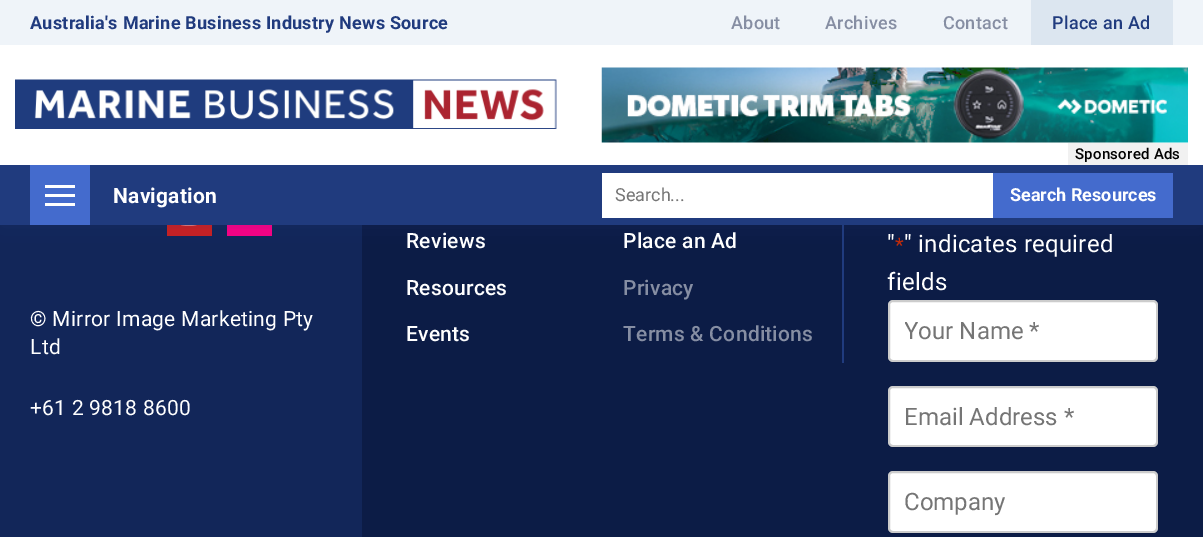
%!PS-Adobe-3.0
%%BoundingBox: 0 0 1203 537
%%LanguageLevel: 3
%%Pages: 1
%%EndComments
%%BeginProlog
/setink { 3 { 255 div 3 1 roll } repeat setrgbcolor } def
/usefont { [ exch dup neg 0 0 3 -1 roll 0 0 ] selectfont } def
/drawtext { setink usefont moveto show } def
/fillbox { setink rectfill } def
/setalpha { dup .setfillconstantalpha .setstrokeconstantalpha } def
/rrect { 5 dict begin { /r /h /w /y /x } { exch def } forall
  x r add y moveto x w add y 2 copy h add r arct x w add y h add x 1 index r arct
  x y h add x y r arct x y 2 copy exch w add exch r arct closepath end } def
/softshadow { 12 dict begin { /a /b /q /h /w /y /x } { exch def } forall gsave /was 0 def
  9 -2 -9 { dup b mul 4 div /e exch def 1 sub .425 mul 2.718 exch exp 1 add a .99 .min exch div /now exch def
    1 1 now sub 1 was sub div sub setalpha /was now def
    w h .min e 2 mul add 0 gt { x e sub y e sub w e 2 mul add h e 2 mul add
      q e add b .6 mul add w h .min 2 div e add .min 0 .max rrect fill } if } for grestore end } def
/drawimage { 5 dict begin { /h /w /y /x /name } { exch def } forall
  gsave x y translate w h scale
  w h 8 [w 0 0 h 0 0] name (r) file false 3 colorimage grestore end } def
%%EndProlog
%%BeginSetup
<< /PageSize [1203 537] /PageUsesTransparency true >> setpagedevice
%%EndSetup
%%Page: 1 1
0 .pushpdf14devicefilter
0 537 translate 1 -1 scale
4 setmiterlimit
0 0 1203 537 18 38 89 fillbox
362 225 841 312 12 28 70 fillbox
167 225 45 11 205 32 31 fillbox
(assets/img3.rgb) 181 225 16 1 drawimage
227 225 45 11 255 0 132 fillbox
842 225 2 138 32 59 126 fillbox
31 58 126 setink
0 0 1203 225 0 15 0.2 softshadow
0 45 1203 120 255 255 255 fillbox
0 0 1203 45 239 244 249 fillbox
/Roboto-Bold 18 usefont
32 59 126 setink
30 29 moveto 0.25 0 (Australia's Marine Business Industry News Source) ashow
/Roboto-Medium 18 usefont
134 142 163 setink
731 29 moveto 0.25 0 (About) ashow
825 29 moveto 0.25 0 (Archives) ashow
943 29 moveto 0.25 0 (Contact) ashow
1031 0 142 45 220 230 240 fillbox
32 59 126 setink
1052 29 moveto 0.25 0 (Place an Ad) ashow
(assets/img1.rgb) 15 79 542 50 drawimage
(assets/img2.rgb) 601 67 587 76 drawimage
1068 143 120 22 241 241 241 fillbox
/Roboto-Medium 15 usefont
0 0 0 setink
1075 159 moveto 0.25 0 (Sponsored Ads) ashow
0 165 1203 60 32 59 126 fillbox
30 165 60 60 68 107 205 fillbox
45 185 30 3 255 255 255 fillbox
45 194 30 3 255 255 255 fillbox
/Roboto-Bold 21 usefont
113 203 moveto 0.25 0 (Navigation) ashow
45 203 30 3 255 255 255 fillbox
602 173 391 45 255 255 255 fillbox
(Search...) 615 201 /Roboto-Regular 18 117 117 117 drawtext
993 173 180 45 68 107 205 fillbox
(Search Resources) 1010 201 /Roboto-Bold 18 255 255 255 drawtext
/Roboto-Regular 21 usefont
30 326 moveto 0.25 0 (© Mirror Image Marketing Pty) ashow
30 354 moveto 0.25 0 (Ltd) ashow
30 415 moveto 0.25 0 (+61 2 9818 8600) ashow
/Roboto-Medium 21 usefont
406 248 moveto 0.25 0 (Reviews) ashow
623 248 moveto 0.25 0 (Place an Ad) ashow
406 295 moveto 0.25 0 (Resources) ashow
134 142 163 setink
623 295 moveto 0.25 0 (Privacy) ashow
255 255 255 setink
406 341 moveto 0.25 0 (Events) ashow
134 142 163 setink
623 341 moveto 0.25 0 (Terms & Conditions) ashow
/Roboto-Regular 24 usefont
255 255 255 setink
887 252 moveto 0.25 0 (") ashow
/Roboto-Regular 20 usefont
192 43 10 setink
895 252 moveto 0.25 0 (*) ashow
/Roboto-Regular 24 usefont
255 255 255 setink
904 252 moveto 0.25 0 (" indicates required) ashow
887 290 moveto 0.25 0 (fields) ashow
888 300 270 62 5 rrect fill
0.2 setalpha
0 0 0 setink
2 setlinewidth
889 301 268 60 4 rrect stroke
gsave
905 317 237 28 rectclip
1 setalpha
(Your Name *) 904 339 /Roboto-Regular 24 117 117 117 drawtext
grestore
1 setalpha
255 255 255 setink
888 386 270 61 5 rrect fill
0.2 setalpha
0 0 0 setink
889 387 268 59 4 rrect stroke
1 setalpha
(Email Address *) 904 425 /Roboto-Regular 24 117 117 117 drawtext
255 255 255 setink
888 471 270 62 5 rrect fill
0.2 setalpha
0 0 0 setink
889 472 268 60 4 rrect stroke
1 setalpha
(Company) 904 510 /Roboto-Regular 24 117 117 117 drawtext
.poppdf14devicefilter showpage
%%EOF
